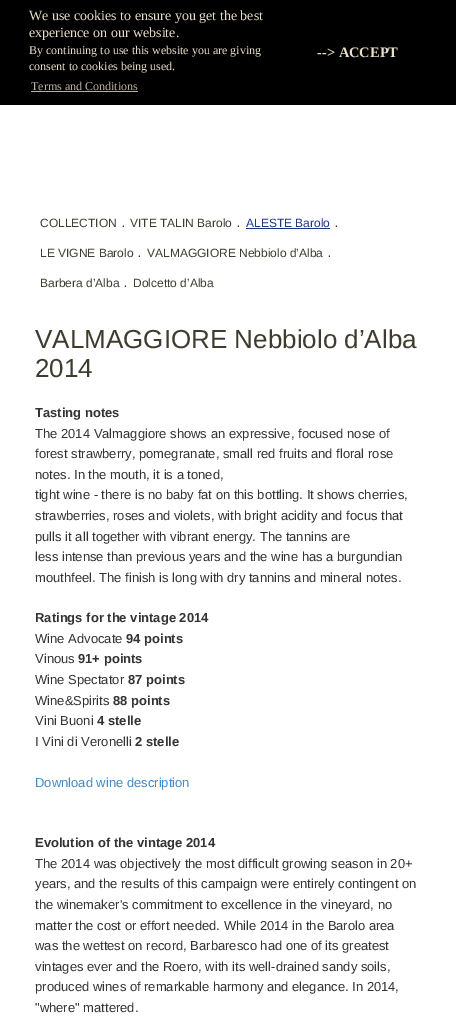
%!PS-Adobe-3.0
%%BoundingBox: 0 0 456 1024
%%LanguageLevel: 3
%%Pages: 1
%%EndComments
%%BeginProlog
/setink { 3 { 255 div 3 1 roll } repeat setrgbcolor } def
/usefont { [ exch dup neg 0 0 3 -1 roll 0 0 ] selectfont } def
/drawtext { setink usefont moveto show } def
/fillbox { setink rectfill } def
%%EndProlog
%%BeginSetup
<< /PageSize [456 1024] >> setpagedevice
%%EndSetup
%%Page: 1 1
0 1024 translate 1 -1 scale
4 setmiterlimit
0 0 456 1024 255 255 255 fillbox
0 0 456 105 0 0 0 fillbox
(We use cookies to ensure you get the best) 29 20 /LiberationSerif-Regular 14 233 222 199 drawtext
(experience on our website.) 29 37 /LiberationSerif-Regular 14 233 222 199 drawtext
(By continuing to use this website you are giving) 29 54 /LiberationSerif-Regular 12 233 222 199 drawtext
(consent to cookies being used.) 29 70 /LiberationSerif-Regular 12 233 222 199 drawtext
(Terms and Conditions) 31 90 /LiberationSerif-Regular 12 186 178 159 drawtext
31 91 107 1 186 178 159 fillbox
(--> ACCEPT) 317 57 /LiberationSerif-Bold 14.5 233 222 199 drawtext
(COLLECTION) 40 227 /LiberationSans-Regular 12 63 59 46 drawtext
(·) 121 230 /LiberationSans-Regular 14 51 51 51 drawtext
(VITE TALIN Barolo) 130 227 /LiberationSans-Regular 12 63 59 46 drawtext
(·) 236 230 /LiberationSans-Regular 14 51 51 51 drawtext
(ALESTE Barolo) 246 227 /LiberationSans-Regular 12 31 54 133 drawtext
246 228 84 1 31 54 133 fillbox
(·) 334 230 /LiberationSans-Regular 14 51 51 51 drawtext
(LE VIGNE Barolo) 40 257 /LiberationSans-Regular 12 63 59 46 drawtext
(·) 137 260 /LiberationSans-Regular 14 51 51 51 drawtext
(VALMAGGIORE Nebbiolo d’Alba) 147 257 /LiberationSans-Regular 12 63 59 46 drawtext
(·) 327 260 /LiberationSans-Regular 14 51 51 51 drawtext
(Barbera d’Alba) 40 287 /LiberationSans-Regular 12 63 59 46 drawtext
(·) 123 290 /LiberationSans-Regular 14 51 51 51 drawtext
(Dolcetto d’Alba) 133 287 /LiberationSans-Regular 12 63 59 46 drawtext
(VALMAGGIORE Nebbiolo d’Alba) 35 348 /LiberationSans-Regular 26 63 59 46 drawtext
(2014) 35 377 /LiberationSans-Regular 26 63 59 46 drawtext
(Tasting notes) 35 417 /LiberationSans-Bold 13 51 51 51 drawtext
(The 2014 Valmaggiore shows an expressive, focused nose of) 35 438 /LiberationSans-Regular 13 51 51 51 drawtext
(forest strawberry, pomegranate, small red fruits and floral rose) 35 458 /LiberationSans-Regular 13 51 51 51 drawtext
(notes. In the mouth, it is a toned,) 35 479 /LiberationSans-Regular 13 51 51 51 drawtext
(tight wine - there is no baby fat on this bottling. It shows cherries,) 35 499 /LiberationSans-Regular 13 51 51 51 drawtext
(strawberries, roses and violets, with bright acidity and focus that) 35 520 /LiberationSans-Regular 13 51 51 51 drawtext
(pulls it all together with vibrant energy. The tannins are) 35 541 /LiberationSans-Regular 13 51 51 51 drawtext
(less intense than previous years and the wine has a burgundian) 35 561 /LiberationSans-Regular 13 51 51 51 drawtext
(mouthfeel. The finish is long with dry tannins and mineral notes.) 35 582 /LiberationSans-Regular 13 51 51 51 drawtext
(Ratings for the vintage 2014) 35 622 /LiberationSans-Bold 13 51 51 51 drawtext
(Wine Advocate) 35 643 /LiberationSans-Regular 13 51 51 51 drawtext
(94 points) 126 643 /LiberationSans-Bold 13 51 51 51 drawtext
(Vinous) 35 663 /LiberationSans-Regular 13 51 51 51 drawtext
(91+ points) 78 663 /LiberationSans-Bold 13 51 51 51 drawtext
(Wine Spectator) 35 684 /LiberationSans-Regular 13 51 51 51 drawtext
(87 points) 128 684 /LiberationSans-Bold 13 51 51 51 drawtext
(Wine&Spirits) 35 705 /LiberationSans-Regular 13 51 51 51 drawtext
(88 points) 113 705 /LiberationSans-Bold 13 51 51 51 drawtext
(Vini Buoni) 35 725 /LiberationSans-Regular 13 51 51 51 drawtext
(4 stelle) 97 725 /LiberationSans-Bold 13 51 51 51 drawtext
(I Vini di Veronelli) 35 746 /LiberationSans-Regular 13 51 51 51 drawtext
(2 stelle) 135 746 /LiberationSans-Bold 13 51 51 51 drawtext
(Download wine description) 35 787 /LiberationSans-Regular 13 66 139 202 drawtext
(Evolution of the vintage 2014) 35 847 /LiberationSans-Bold 13 51 51 51 drawtext
(The 2014 was objectively the most difficult growing season in 20+) 35 868 /LiberationSans-Regular 13 51 51 51 drawtext
(years, and the results of this campaign were entirely contingent on) 35 888 /LiberationSans-Regular 13 51 51 51 drawtext
(the winemaker's commitment to excellence in the vineyard, no) 35 909 /LiberationSans-Regular 13 51 51 51 drawtext
(matter the cost or effort needed. While 2014 in the Barolo area) 35 930 /LiberationSans-Regular 13 51 51 51 drawtext
(was the wettest on record, Barbaresco had one of its greatest) 35 950 /LiberationSans-Regular 13 51 51 51 drawtext
(vintages ever and the Roero, with its well-drained sandy soils,) 35 971 /LiberationSans-Regular 13 51 51 51 drawtext
(produced wines of remarkable harmony and elegance. In 2014,) 35 991 /LiberationSans-Regular 13 51 51 51 drawtext
("where" mattered.) 35 1012 /LiberationSans-Regular 13 51 51 51 drawtext
showpage
%%EOF
